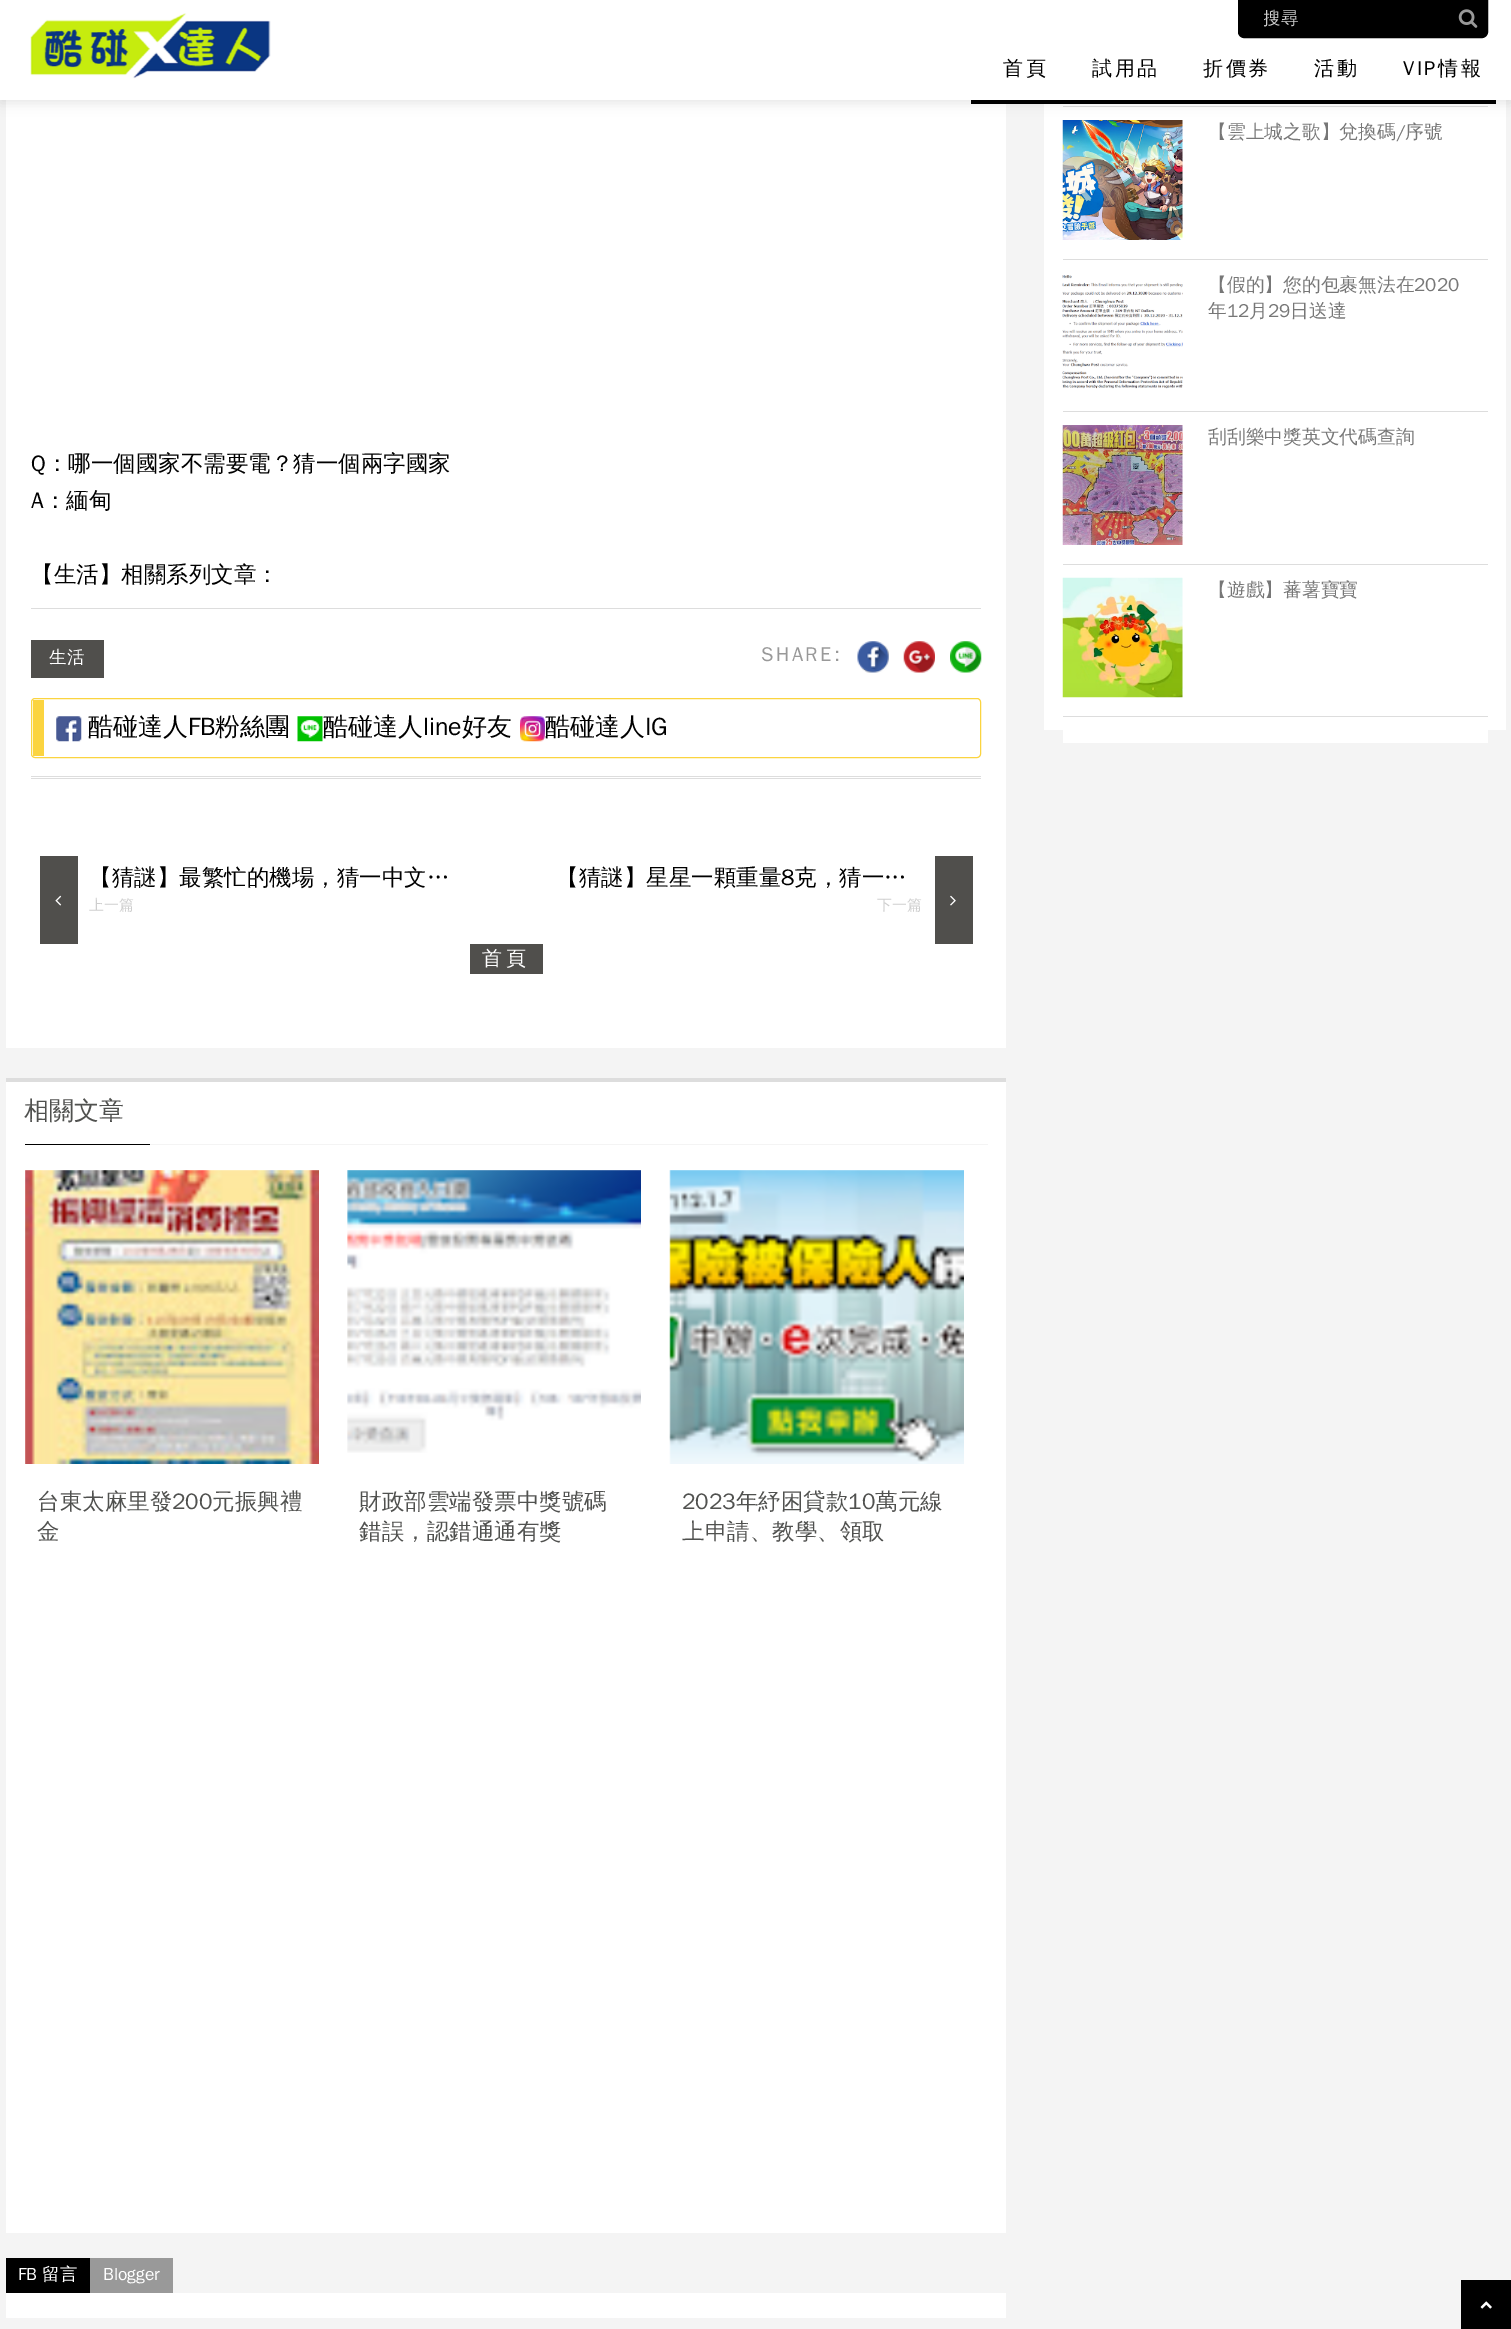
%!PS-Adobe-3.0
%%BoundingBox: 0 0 1511 2329
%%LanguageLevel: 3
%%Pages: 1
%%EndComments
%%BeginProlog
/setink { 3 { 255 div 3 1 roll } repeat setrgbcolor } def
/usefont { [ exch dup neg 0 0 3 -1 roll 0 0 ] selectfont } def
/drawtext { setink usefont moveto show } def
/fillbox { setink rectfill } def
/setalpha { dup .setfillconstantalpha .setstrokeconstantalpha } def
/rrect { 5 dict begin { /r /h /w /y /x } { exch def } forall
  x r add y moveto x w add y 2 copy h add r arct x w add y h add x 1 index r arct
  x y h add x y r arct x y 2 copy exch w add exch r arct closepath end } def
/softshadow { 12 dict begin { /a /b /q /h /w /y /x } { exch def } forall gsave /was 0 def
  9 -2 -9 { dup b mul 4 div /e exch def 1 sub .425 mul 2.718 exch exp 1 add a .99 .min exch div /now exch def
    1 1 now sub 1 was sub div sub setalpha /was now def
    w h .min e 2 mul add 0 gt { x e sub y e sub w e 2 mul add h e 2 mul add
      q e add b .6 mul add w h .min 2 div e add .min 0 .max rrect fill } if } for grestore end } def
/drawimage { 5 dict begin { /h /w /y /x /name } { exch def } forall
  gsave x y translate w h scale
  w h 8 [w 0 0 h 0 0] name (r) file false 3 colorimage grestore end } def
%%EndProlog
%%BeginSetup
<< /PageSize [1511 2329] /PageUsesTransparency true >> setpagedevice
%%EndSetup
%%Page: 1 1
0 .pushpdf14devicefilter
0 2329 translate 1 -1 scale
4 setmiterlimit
0 0 1511 2329 244 244 244 fillbox
1044 100 462 630 255 255 255 fillbox
1063 106 425 1 221 221 221 fillbox
(assets/img3.rgb) 1062 120 121 120 drawimage
6 100 1000 948 255 255 255 fillbox
0 0 0 setink
0 3 1511 100 0 6 0.1 softshadow
0 0 1511 100 255 255 255 fillbox
(assets/img1.rgb) 30 13 241 66 drawimage
0 0 0 setink
1238.5 0.5 moveto 1487.5 0.5 lineto 1487.5 32 lineto 1487.5 35 1485 37.5 1482 37.5 curveto 1244 37.5 lineto 1241 37.5 1238.5 35 1238.5 32 curveto closepath gsave fill grestore
stroke
gsave
1264 8 197 22 rectclip
(搜尋) 1263 24 /WenQuanYiZenHei-Medium 17.5 206 206 206 drawtext
grestore
(assets/img2.rgb) 1458 9 20 19 drawimage
971 100 525 4 0 0 0 fillbox
/WenQuanYiZenHei-Medium 20 usefont
1003 75 moveto 2.5 0 (首頁) ashow
1092 75 moveto 2.5 0 (試用品) ashow
1203 75 moveto 2.5 0 (折價券) ashow
1314 75 moveto 2.5 0 (活動) ashow
1403 75 moveto 2.5 0 (VIP情報) ashow
1063 259 425 1 221 221 221 fillbox
(【雲上城之歌】兌換碼/序號) 1208 138 /WenQuanYiZenHei-Medium 18.75 119 119 119 drawtext
1063 411 425 1 221 221 221 fillbox
(assets/img4.rgb) 1062 275 121 114 drawimage
(【假的】您的包裹無法在2020) 1208 291 /WenQuanYiZenHei-Medium 18.75 119 119 119 drawtext
(年12月29日送達) 1208 317 /WenQuanYiZenHei-Medium 18.75 119 119 119 drawtext
1063 564 425 1 221 221 221 fillbox
(assets/img5.rgb) 1062 425 121 120 drawimage
(刮刮樂中獎英文代碼查詢) 1208 443 /WenQuanYiZenHei-Medium 18.75 119 119 119 drawtext
1063 716 425 1 221 221 221 fillbox
(assets/img6.rgb) 1062 577 121 121 drawimage
(【遊戲】蕃薯寶寶) 1208 596 /WenQuanYiZenHei-Medium 18.75 119 119 119 drawtext
1063 730 425 13 255 255 255 fillbox
(Q：哪一個國家不需要電？猜一個兩字國家) 31 471 /WenQuanYiZenHei-Medium 22.5 0 0 0 drawtext
(A：緬甸) 31 508 /WenQuanYiZenHei-Medium 22.5 0 0 0 drawtext
(【生活】相關系列文章：) 31 582 /WenQuanYiZenHei-Medium 22.5 0 0 0 drawtext
31 608 950 1 221 221 221 fillbox
31 776 950 1 221 221 221 fillbox
31 640 73 38 80 79 76 fillbox
(生活) 49 663 /WenQuanYiZenHei-Medium 17.5 255 255 255 drawtext
/WenQuanYiZenHei-Medium 20 usefont
153 153 153 setink
761 661 moveto 2.5 0 (SHARE:) ashow
(assets/img7.rgb) 857 641 32 32 drawimage
(assets/img8.rgb) 903 641 32 32 drawimage
(assets/img9.rgb) 950 641 32 32 drawimage
251 212 64 setink
31.5 698.5 949 59 3.5 rrect stroke
33 700 11 56 251 212 64 fillbox
(assets/img10.rgb) 56 716 26 26 drawimage
(酷碰達人FB粉絲團) 88 735 /WenQuanYiZenHei-Medium 25 0 0 0 drawtext
(assets/img11.rgb) 297 716 26 26 drawimage
(酷碰達人line好友) 323 735 /WenQuanYiZenHei-Medium 25 0 0 0 drawtext
(assets/img12.rgb) 520 716 25 26 drawimage
(酷碰達人IG) 545 735 /WenQuanYiZenHei-Medium 25 0 0 0 drawtext
31 778 950 1 221 221 221 fillbox
40 856 38 88 80 79 76 fillbox
(assets/img13.rgb) 55 895 7 11 drawimage
(【猜謎】最繁忙的機場，猜一中文…) 89 885 /WenQuanYiZenHei-Medium 22.5 0 0 0 drawtext
(上一篇) 89 910 /WenQuanYiZenHei-Medium 15 206 206 206 drawtext
(【猜謎】星星一顆重量8克，猜一…) 556 885 /WenQuanYiZenHei-Medium 22.5 0 0 0 drawtext
935 856 38 88 80 79 76 fillbox
(assets/img14.rgb) 950 895 6 11 drawimage
(下一篇) 877 910 /WenQuanYiZenHei-Medium 15 206 206 206 drawtext
470 944 73 30 80 79 76 fillbox
/WenQuanYiZenHei-Medium 20 usefont
255 255 255 setink
482 965 moveto 4 0 (首頁) ashow
6 1082 1000 1151 255 255 255 fillbox
6 1078 1000 4 221 221 221 fillbox
150 1144 838 1 244 244 244 fillbox
(相關文章) 24 1119 /WenQuanYiZenHei-Medium 25 80 81 79 drawtext
25 1144 125 1 0 0 0 fillbox
(assets/img15.rgb) 25 1170 294 294 drawimage
(台東太麻里發200元振興禮) 37 1509 /WenQuanYiZenHei-Medium 22.5 80 81 79 drawtext
(金) 37 1539 /WenQuanYiZenHei-Medium 22.5 80 81 79 drawtext
(assets/img16.rgb) 347 1170 294 283 drawimage
(財政部雲端發票中獎號碼) 359 1509 /WenQuanYiZenHei-Medium 22.5 80 81 79 drawtext
(錯誤，認錯通通有獎) 359 1539 /WenQuanYiZenHei-Medium 22.5 80 81 79 drawtext
(assets/img17.rgb) 669 1170 295 294 drawimage
(2023年紓困貸款10萬元線) 682 1509 /WenQuanYiZenHei-Medium 22.5 80 81 79 drawtext
(上申請、教學、領取) 682 1539 /WenQuanYiZenHei-Medium 22.5 80 81 79 drawtext
6 2258 84 35 0 0 0 fillbox
(FB 留言) 18 2280 /WenQuanYiZenHei-Medium 17.5 255 255 255 drawtext
90 2258 83 35 153 153 153 fillbox
(Blogger) 103 2280 /WenQuanYiZenHei-Medium 17.5 255 255 255 drawtext
6 2293 1000 25 255 255 255 fillbox
1461 2280 50 49 0 0 0 fillbox
(assets/img18.rgb) 1480 2301 12 8 drawimage
.poppdf14devicefilter showpage
%%EOF
